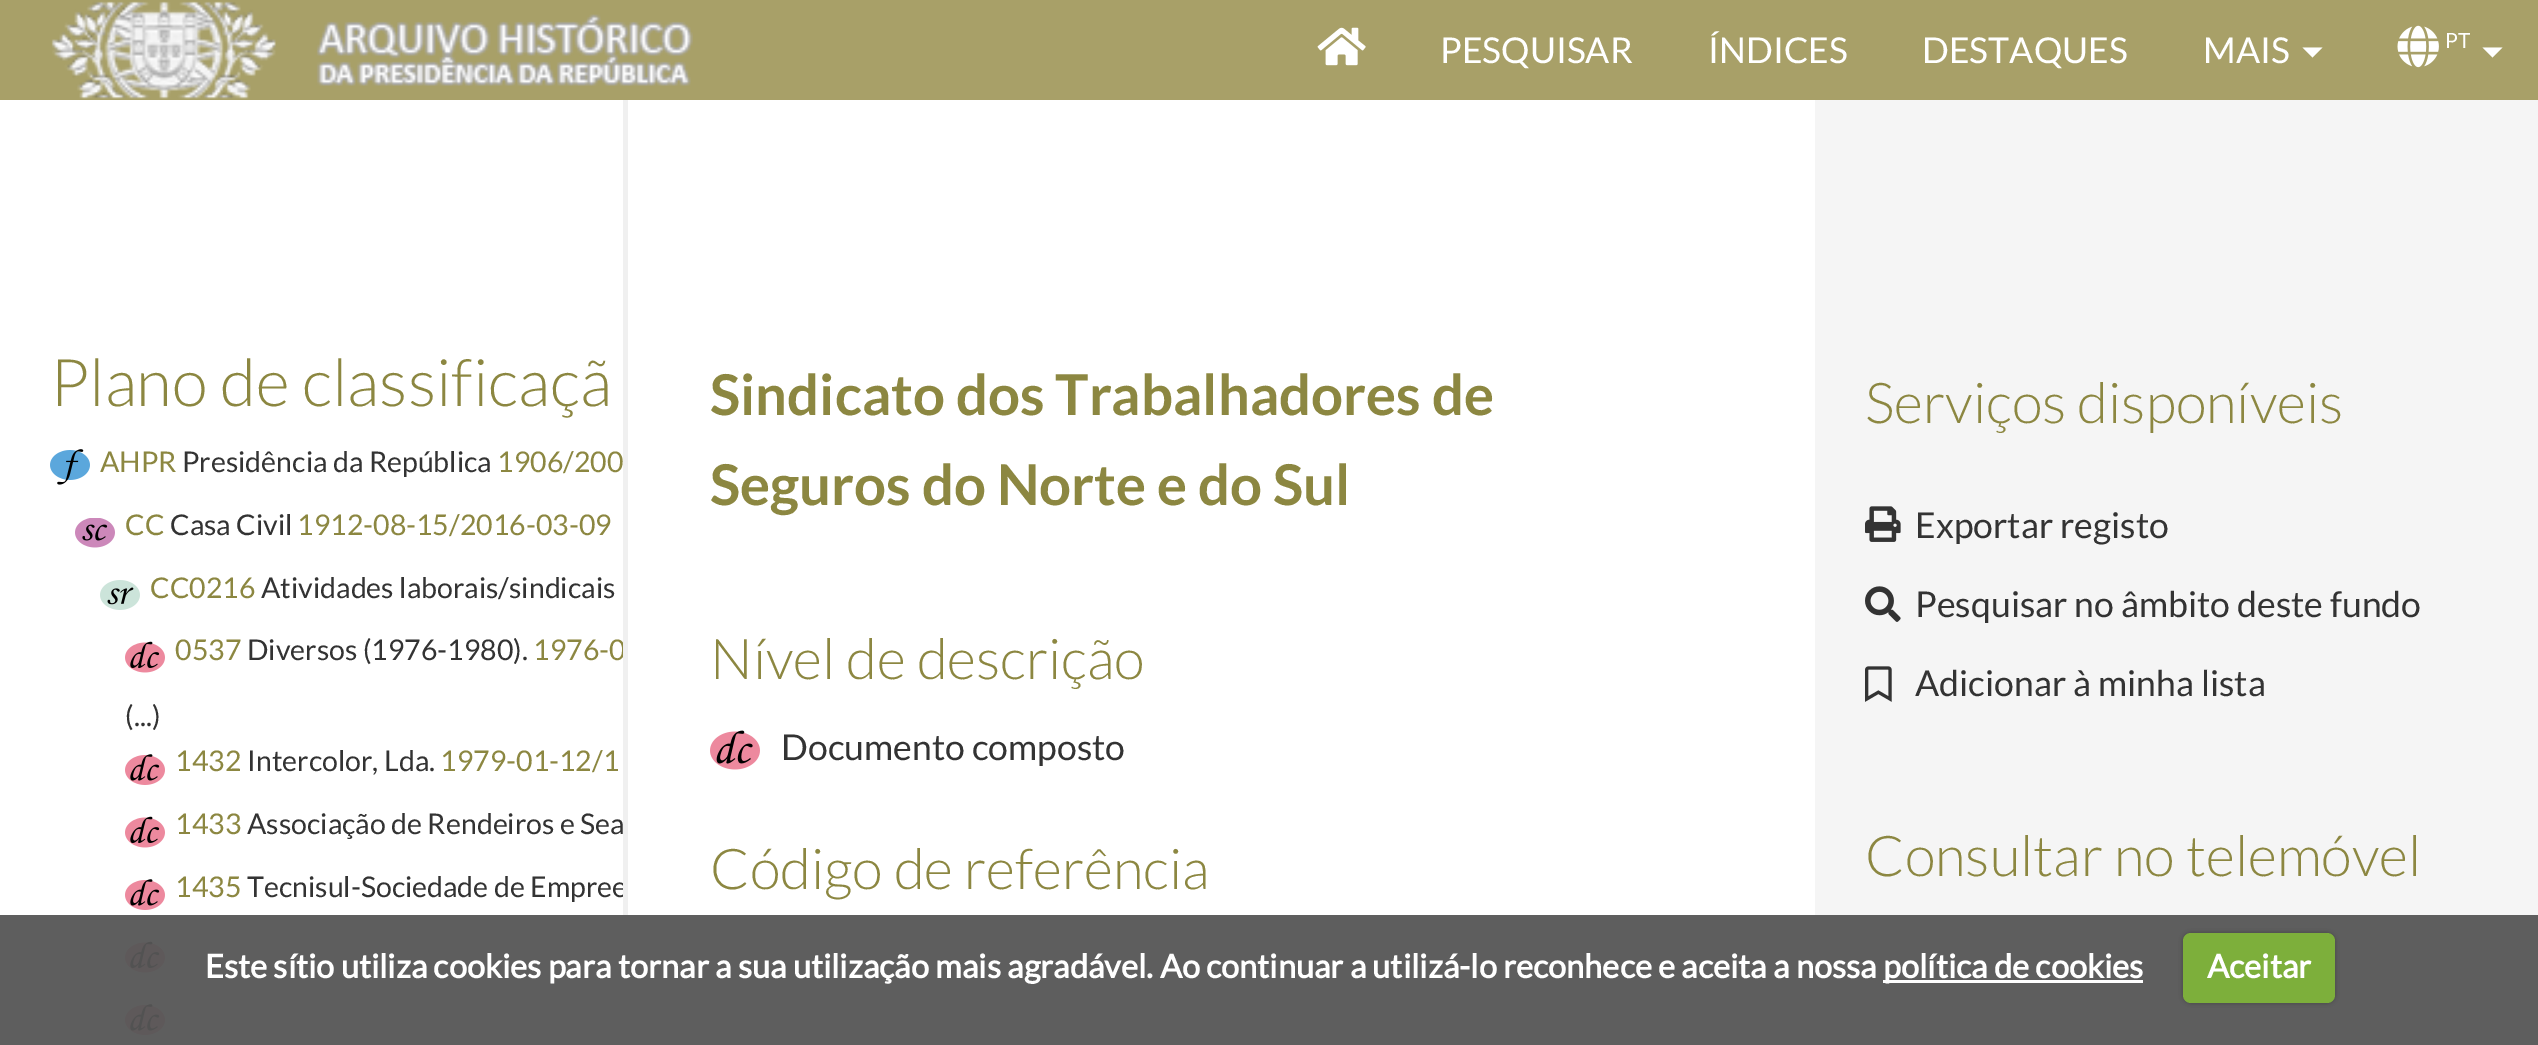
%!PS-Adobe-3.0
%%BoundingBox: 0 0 2538 1045
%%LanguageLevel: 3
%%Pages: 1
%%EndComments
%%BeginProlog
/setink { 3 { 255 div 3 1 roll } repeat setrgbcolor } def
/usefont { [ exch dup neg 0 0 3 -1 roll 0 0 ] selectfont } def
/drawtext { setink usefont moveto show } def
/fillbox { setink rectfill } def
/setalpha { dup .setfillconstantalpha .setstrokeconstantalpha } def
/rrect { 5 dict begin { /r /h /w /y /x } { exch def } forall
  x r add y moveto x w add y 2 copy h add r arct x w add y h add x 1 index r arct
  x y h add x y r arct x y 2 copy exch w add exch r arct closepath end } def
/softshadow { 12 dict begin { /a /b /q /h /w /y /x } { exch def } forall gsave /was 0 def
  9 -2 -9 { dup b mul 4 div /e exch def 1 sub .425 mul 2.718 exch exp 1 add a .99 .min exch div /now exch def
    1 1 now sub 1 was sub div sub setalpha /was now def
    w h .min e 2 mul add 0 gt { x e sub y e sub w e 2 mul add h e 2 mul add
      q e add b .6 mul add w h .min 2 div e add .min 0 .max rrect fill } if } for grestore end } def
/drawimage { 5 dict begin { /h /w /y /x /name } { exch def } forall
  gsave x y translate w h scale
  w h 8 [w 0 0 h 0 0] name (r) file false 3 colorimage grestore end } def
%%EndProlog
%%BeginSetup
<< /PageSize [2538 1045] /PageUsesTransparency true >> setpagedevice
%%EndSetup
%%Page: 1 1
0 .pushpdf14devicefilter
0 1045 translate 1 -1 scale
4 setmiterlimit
0 0 2538 1045 255 255 255 fillbox
0 915 2538 130 94 94 94 fillbox
0 0 2538 100 168 160 104 fillbox
(assets/img1.rgb) 51 1 642 98 drawimage
(assets/img2.rgb) 1317 27 49 39 drawimage
(PESQUISAR) 1440 63 /Lato-Regular 35.6 255 255 255 drawtext
(ÍNDICES) 1708 63 /Lato-Regular 35.6 255 255 255 drawtext
(DESTAQUES) 1922 63 /Lato-Regular 35.6 255 255 255 drawtext
(MAIS) 2203 63 /Lato-Regular 35.6 255 255 255 drawtext
2302.5 47.5 moveto 2322.5 47.5 lineto 2312.5 57.5 lineto closepath fill
(assets/img3.rgb) 2397 25 42 43 drawimage
(PT) 2445 48 /Lato-Regular 21 255 255 255 drawtext
2482.5 47.5 moveto 2502.5 47.5 lineto 2492.5 57.5 lineto closepath fill
1815 100 723 815 245 245 245 fillbox
(1976-0) 533 660 /Lato-Regular 28.5 140 135 65 drawtext
(Tecnisul-Sociedade de Empree) 247 897 /Lato-Regular 28.5 51 51 51 drawtext
623 100 5 815 240 240 240 fillbox
(Plano de classificaçã) 50 406 /Lato-Light 65.6 140 135 65 drawtext
(assets/img4.rgb) 50 449 40 36 drawimage
(AHPR) 100 472 /Lato-Regular 28.5 140 135 65 drawtext
(Presidência da República) 182 472 /Lato-Regular 28.5 51 51 51 drawtext
(1906/200) 497 472 /Lato-Regular 28.5 140 135 65 drawtext
(assets/img5.rgb) 75 518 40 30 drawimage
(CC) 125 535 /Lato-Regular 28.5 140 135 65 drawtext
(Casa Civil) 170 535 /Lato-Regular 28.5 51 51 51 drawtext
(1912-08-15/2016-03-09) 297 535 /Lato-Regular 28.5 140 135 65 drawtext
(assets/img6.rgb) 100 580 40 30 drawimage
(CC0216) 150 598 /Lato-Regular 28.5 140 135 65 drawtext
(Atividades laborais/sindicais) 261 598 /Lato-Regular 28.5 51 51 51 drawtext
(assets/img7.rgb) 125 641 40 32 drawimage
(0537) 175 660 /Lato-Regular 28.5 140 135 65 drawtext
(Diversos \(1976-1980\).) 247 660 /Lato-Regular 28.5 51 51 51 drawtext
(\(...\)) 125 726 /Lato-Regular 28.5 51 51 51 drawtext
(assets/img8.rgb) 125 754 40 31 drawimage
(1432) 175 771 /Lato-Regular 28.5 140 135 65 drawtext
(Intercolor, Lda.) 247 771 /Lato-Regular 28.5 51 51 51 drawtext
(1979-01-12/1) 440 771 /Lato-Regular 28.5 140 135 65 drawtext
(assets/img7.rgb) 125 816 40 32 drawimage
(1433) 175 834 /Lato-Regular 28.5 140 135 65 drawtext
(Associação de Rendeiros e Sea) 247 834 /Lato-Regular 28.5 51 51 51 drawtext
(assets/img8.rgb) 125 879 40 31 drawimage
(1435) 175 897 /Lato-Regular 28.5 140 135 65 drawtext
(assets/img9.rgb) 125 941 40 32 drawimage
(assets/img10.rgb) 125 1004 40 31 drawimage
(Sindicato dos Trabalhadores de) 710 415 /Lato-Bold 56.25 140 135 65 drawtext
(Seguros do Norte e do Sul) 710 505 /Lato-Bold 56.25 140 135 65 drawtext
(Nível de descrição) 710 679 /Lato-Light 56.25 140 135 65 drawtext
(assets/img11.rgb) 710 730 50 40 drawimage
(Documento composto) 781 760 /Lato-Regular 35.6 51 51 51 drawtext
(Código de referência) 710 889 /Lato-Light 56.25 140 135 65 drawtext
(Serviços disponíveis) 1865 423 /Lato-Light 56.25 140 135 65 drawtext
(assets/img12.rgb) 1865 506 36 36 drawimage
(Exportar registo) 1915 538 /Lato-Regular 35.6 51 51 51 drawtext
(assets/img13.rgb) 1865 586 36 36 drawimage
(Pesquisar no âmbito deste fundo) 1915 617 /Lato-Regular 35.6 51 51 51 drawtext
(assets/img14.rgb) 1865 666 27 36 drawimage
(Adicionar à minha lista) 1915 696 /Lato-Regular 35.6 51 51 51 drawtext
(Consultar no telemóvel) 1865 876 /Lato-Light 56.25 140 135 65 drawtext
(Este sítio utiliza cookies para tornar a sua utilização mais agradável. Ao continuar a utilizá-lo reconhece e aceita a nossa) 205 978 /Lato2-Bold 32.5 255 255 255 drawtext
1883 980 260 3 255 255 255 fillbox
(política de cookies) 1883 978 /Lato2-Bold 32.5 255 255 255 drawtext
0 0 0 setink
2183 933 152 70 8 2.5 0.25 softshadow
125 175 59 setink
2183 933 152 70 8 rrect fill
(Aceitar) 2207 978 /Lato2-Bold 32.5 255 255 255 drawtext
.poppdf14devicefilter showpage
%%EOF
